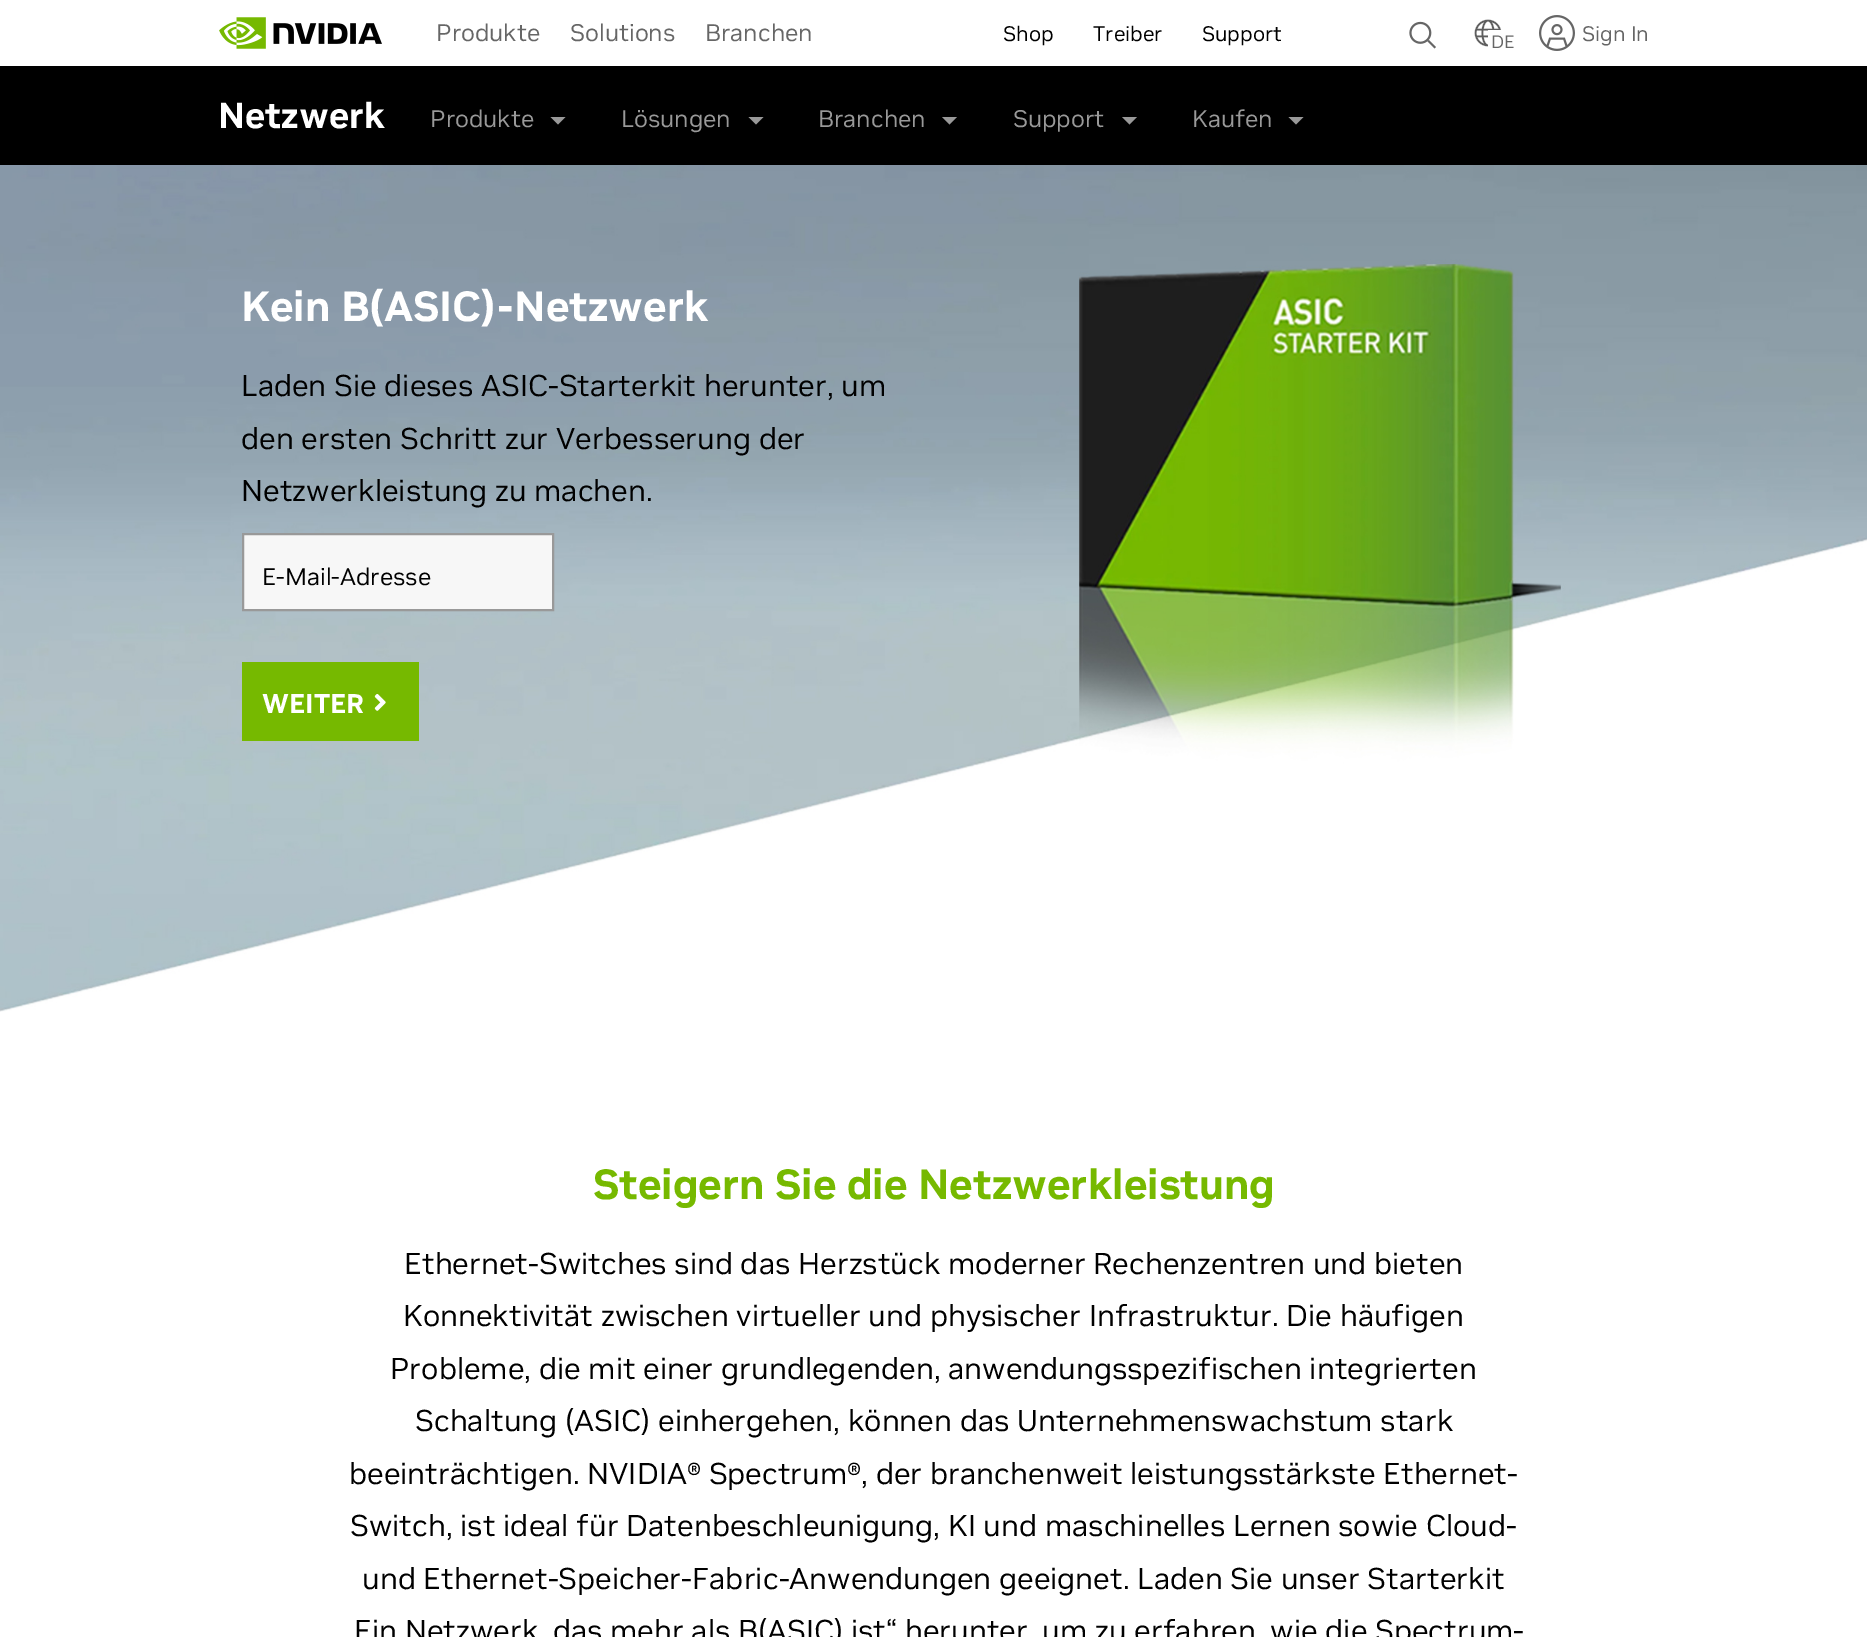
%!PS-Adobe-3.0
%%BoundingBox: 0 0 1867 1637
%%LanguageLevel: 3
%%Pages: 1
%%EndComments
%%BeginProlog
/setink { 3 { 255 div 3 1 roll } repeat setrgbcolor } def
/usefont { [ exch dup neg 0 0 3 -1 roll 0 0 ] selectfont } def
/drawtext { setink usefont moveto show } def
/fillbox { setink rectfill } def
/drawimage { 5 dict begin { /h /w /y /x /name } { exch def } forall
  gsave x y translate w h scale
  w h 8 [w 0 0 h 0 0] name (r) file false 3 colorimage grestore end } def
%%EndProlog
%%BeginSetup
<< /PageSize [1867 1637] >> setpagedevice
%%EndSetup
%%Page: 1 1
0 1637 translate 1 -1 scale
4 setmiterlimit
0 0 1867 1637 255 255 255 fillbox
(assets/img1.rgb) 219 17 163 32 drawimage
(Produkte) 436 41 /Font-Regular 24 102 102 102 drawtext
(Solutions) 570 41 /Font-Regular 24 102 102 102 drawtext
(Branchen) 705 41 /Font-Regular 24 102 102 102 drawtext
(Shop) 1003 41 /Font-Regular 21 0 0 0 drawtext
(Treiber) 1093 41 /Font-Regular 21 0 0 0 drawtext
(Support) 1202 41 /Font-Regular 21 0 0 0 drawtext
(assets/img2.rgb) 1409 21 27 28 drawimage
(assets/img3.rgb) 1474 19 28 28 drawimage
1488 30 14 17 255 255 255 fillbox
(DE) 1491 48 /Font-Regular 18 102 102 102 drawtext
(assets/img4.rgb) 1539 15 36 36 drawimage
(Sign In) 1582 41 /Font-Regular 21 102 102 102 drawtext
0 66 1867 99 0 0 0 fillbox
(Netzwerk) 218 128 /Font-Bold 36 255 255 255 drawtext
(Produkte) 430 127 /Font-Regular 24 153 153 153 drawtext
550.5 117 moveto 558 124.5 lineto 565.5 117 lineto closepath fill
(Lösungen) 621 127 /Font-Regular 24 153 153 153 drawtext
748.5 117 moveto 756 124.5 lineto 763.5 117 lineto closepath fill
(Branchen) 818 127 /Font-Regular 24 153 153 153 drawtext
942 117 moveto 949.5 124.5 lineto 957 117 lineto closepath fill
(Support) 1013 127 /Font-Regular 24 153 153 153 drawtext
1122 117 moveto 1129.5 124.5 lineto 1137 117 lineto closepath fill
(Kaufen) 1192 127 /Font-Regular 24 153 153 153 drawtext
1288.5 117 moveto 1296 124.5 lineto 1303.5 117 lineto closepath fill
(assets/img5.rgb) 0 165 1867 847 drawimage
(Kein B\(ASIC\)-Netzwerk) 241 321 /Font-Bold 42 255 255 255 drawtext
(Laden Sie dieses ASIC-Starterkit herunter, um) 241 396 /Font-Regular 30 0 0 0 drawtext
(den ersten Schritt zur Verbesserung der) 241 449 /Font-Regular 30 0 0 0 drawtext
(Netzwerkleistung zu machen.) 241 501 /Font-Regular 30 0 0 0 drawtext
247 247 247 setink
243 534 moveto 553 534 lineto 553 610 lineto 243 610 lineto closepath gsave fill grestore
153 153 153 setink
2 setlinewidth
stroke
(E-Mail-Adresse) 262 585 /Font-Regular 24 0 0 0 drawtext
242 662 177 79 118 185 0 fillbox
(WEITER) 262 713 /Font-Bold 27 255 255 255 drawtext
(assets/img6.rgb) 374 694 12 17 drawimage
(Steigern Sie die Netzwerkleistung) 593 1199 /Font-Bold 42 118 185 0 drawtext
(Ethernet-Switches sind das Herzstück moderner Rechenzentren und bieten) 404 1274 /Font-Regular 30 0 0 0 drawtext
(Konnektivität zwischen virtueller und physischer Infrastruktur. Die häufigen) 403 1326 /Font-Regular 30 0 0 0 drawtext
(Probleme, die mit einer grundlegenden, anwendungsspezifischen integrierten) 390 1379 /Font-Regular 30 0 0 0 drawtext
(Schaltung \(ASIC\) einhergehen, können das Unternehmenswachstum stark) 415 1431 /Font-Regular 30 0 0 0 drawtext
(beeinträchtigen. NVIDIA® Spectrum®, der branchenweit leistungsstärkste Ethernet-) 349 1484 /Font-Regular 30 0 0 0 drawtext
(Switch, ist ideal für Datenbeschleunigung, KI und maschinelles Lernen sowie Cloud-) 350 1536 /Font-Regular 30 0 0 0 drawtext
(und Ethernet-Speicher-Fabric-Anwendungen geeignet. Laden Sie unser Starterkit) 362 1589 /Font-Regular 30 0 0 0 drawtext
(Ein Netzwerk, das mehr als B\(ASIC\) ist“ herunter, um zu erfahren, wie die Spectrum-) 354 1641 /Font-Regular 30 0 0 0 drawtext
showpage
%%EOF
